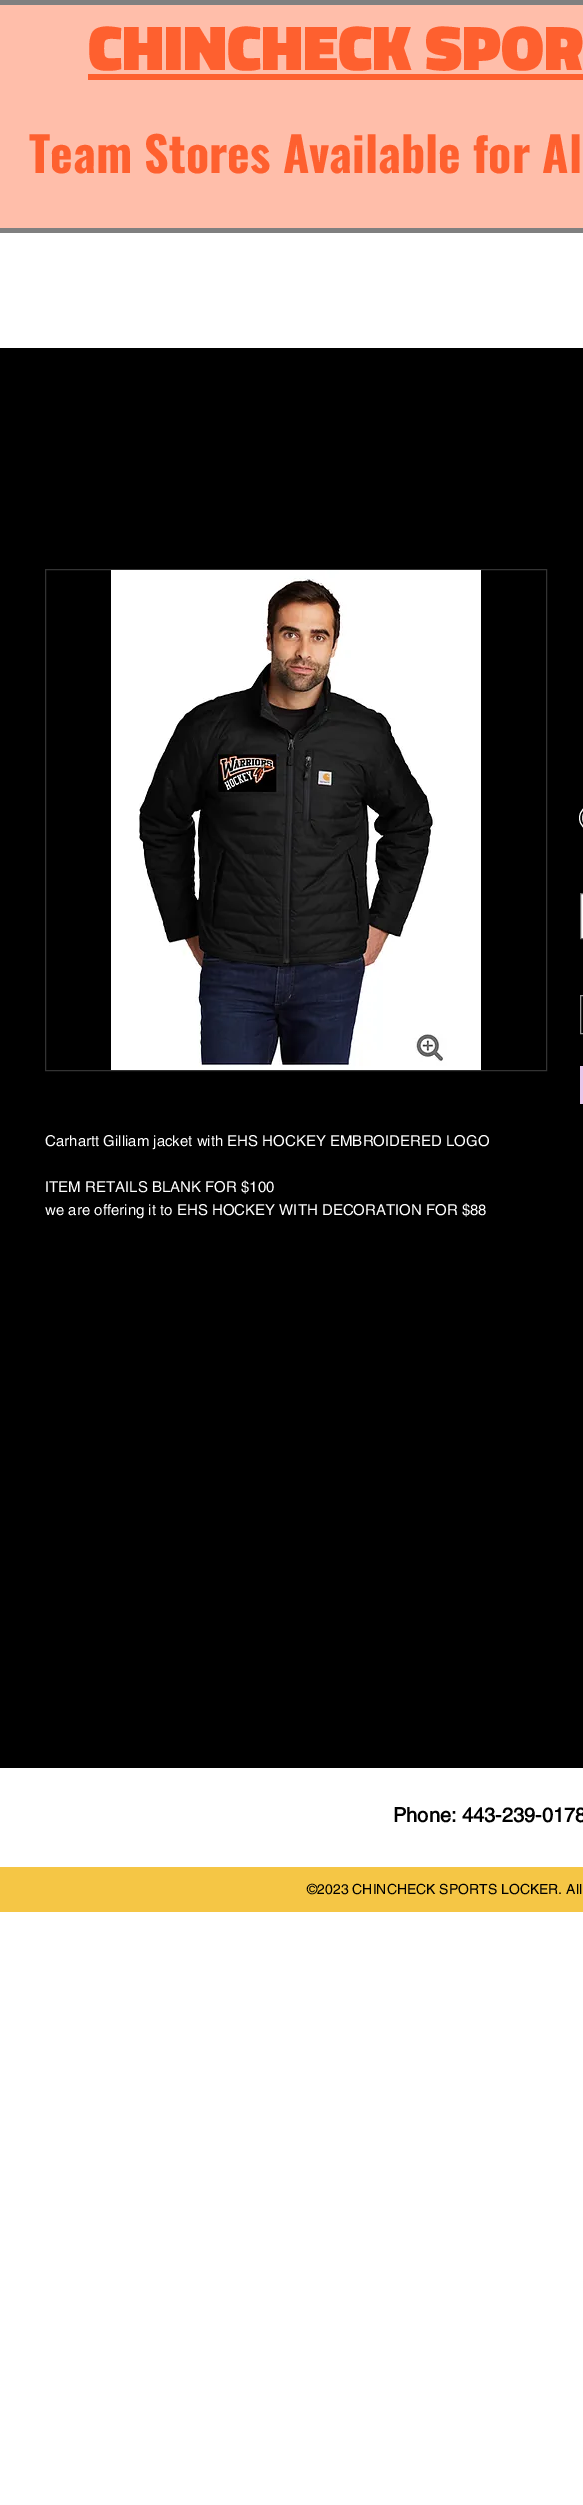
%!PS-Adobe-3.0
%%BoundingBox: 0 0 583 2505
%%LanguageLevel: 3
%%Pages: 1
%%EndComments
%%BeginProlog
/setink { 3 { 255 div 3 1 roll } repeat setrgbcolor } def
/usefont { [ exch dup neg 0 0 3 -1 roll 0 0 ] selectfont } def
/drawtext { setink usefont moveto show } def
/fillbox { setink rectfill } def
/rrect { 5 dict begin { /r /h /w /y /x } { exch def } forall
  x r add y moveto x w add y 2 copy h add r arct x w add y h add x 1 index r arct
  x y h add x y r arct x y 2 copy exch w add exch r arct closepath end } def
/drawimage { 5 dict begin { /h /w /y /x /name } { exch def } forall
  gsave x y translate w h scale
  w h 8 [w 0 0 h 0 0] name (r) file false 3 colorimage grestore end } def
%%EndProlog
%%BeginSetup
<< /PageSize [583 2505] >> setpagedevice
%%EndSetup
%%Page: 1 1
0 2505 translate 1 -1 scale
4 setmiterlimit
0 0 583 2505 255 255 255 fillbox
0 0 583 5 128 128 128 fillbox
0 228 583 5 128 128 128 fillbox
0 5 583 223 255 190 170 fillbox
(CHINCHECK SPOR) 88 70 /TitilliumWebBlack-Black 64 254 96 47 drawtext
88 74 495 6 254 96 47 fillbox
(Team Stores Available for Al) 29 173 /Oswald-Bold 48 254 96 47 drawtext
0 348 583 1420 0 0 0 fillbox
255 255 255 setink
579.5 805.5 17 25 12.5 rrect stroke
201 201 201 setink
582.5 808.5 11 19 9.5 rrect stroke
255 255 255 setink
580.5 893.5 moveto 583.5 893.5 lineto 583.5 938.5 lineto 580.5 938.5 lineto closepath gsave fill grestore
102 102 102 setink
stroke
153 153 153 setink
580.5 995.5 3 38 rectstroke
580 1066 3 38 230 199 235 fillbox
51 51 51 setink
45.5 569.5 501 501 rectstroke
(assets/img1.rgb) 111 570 370 500 drawimage
(Carhartt Gilliam jacket with EHS HOCKEY EMBROIDERED LOGO) 45 1146 /helvetica-Regular 15 255 255 255 drawtext
(ITEM RETAILS BLANK FOR $100) 45 1192 /helvetica-Regular 15 255 255 255 drawtext
(we are offering it to EHS HOCKEY WITH DECORATION FOR $88) 45 1215 /helvetica-Regular 15 255 255 255 drawtext
(Phone: 443-239-0178) 393 1822 /helvetica-Bold 20 0 0 0 drawtext
0 1867 583 45 245 198 69 fillbox
(©2023 CHINCHECK SPORTS LOCKER. All) 307 1894 /helvetica-Regular 14 0 0 0 drawtext
showpage
%%EOF
